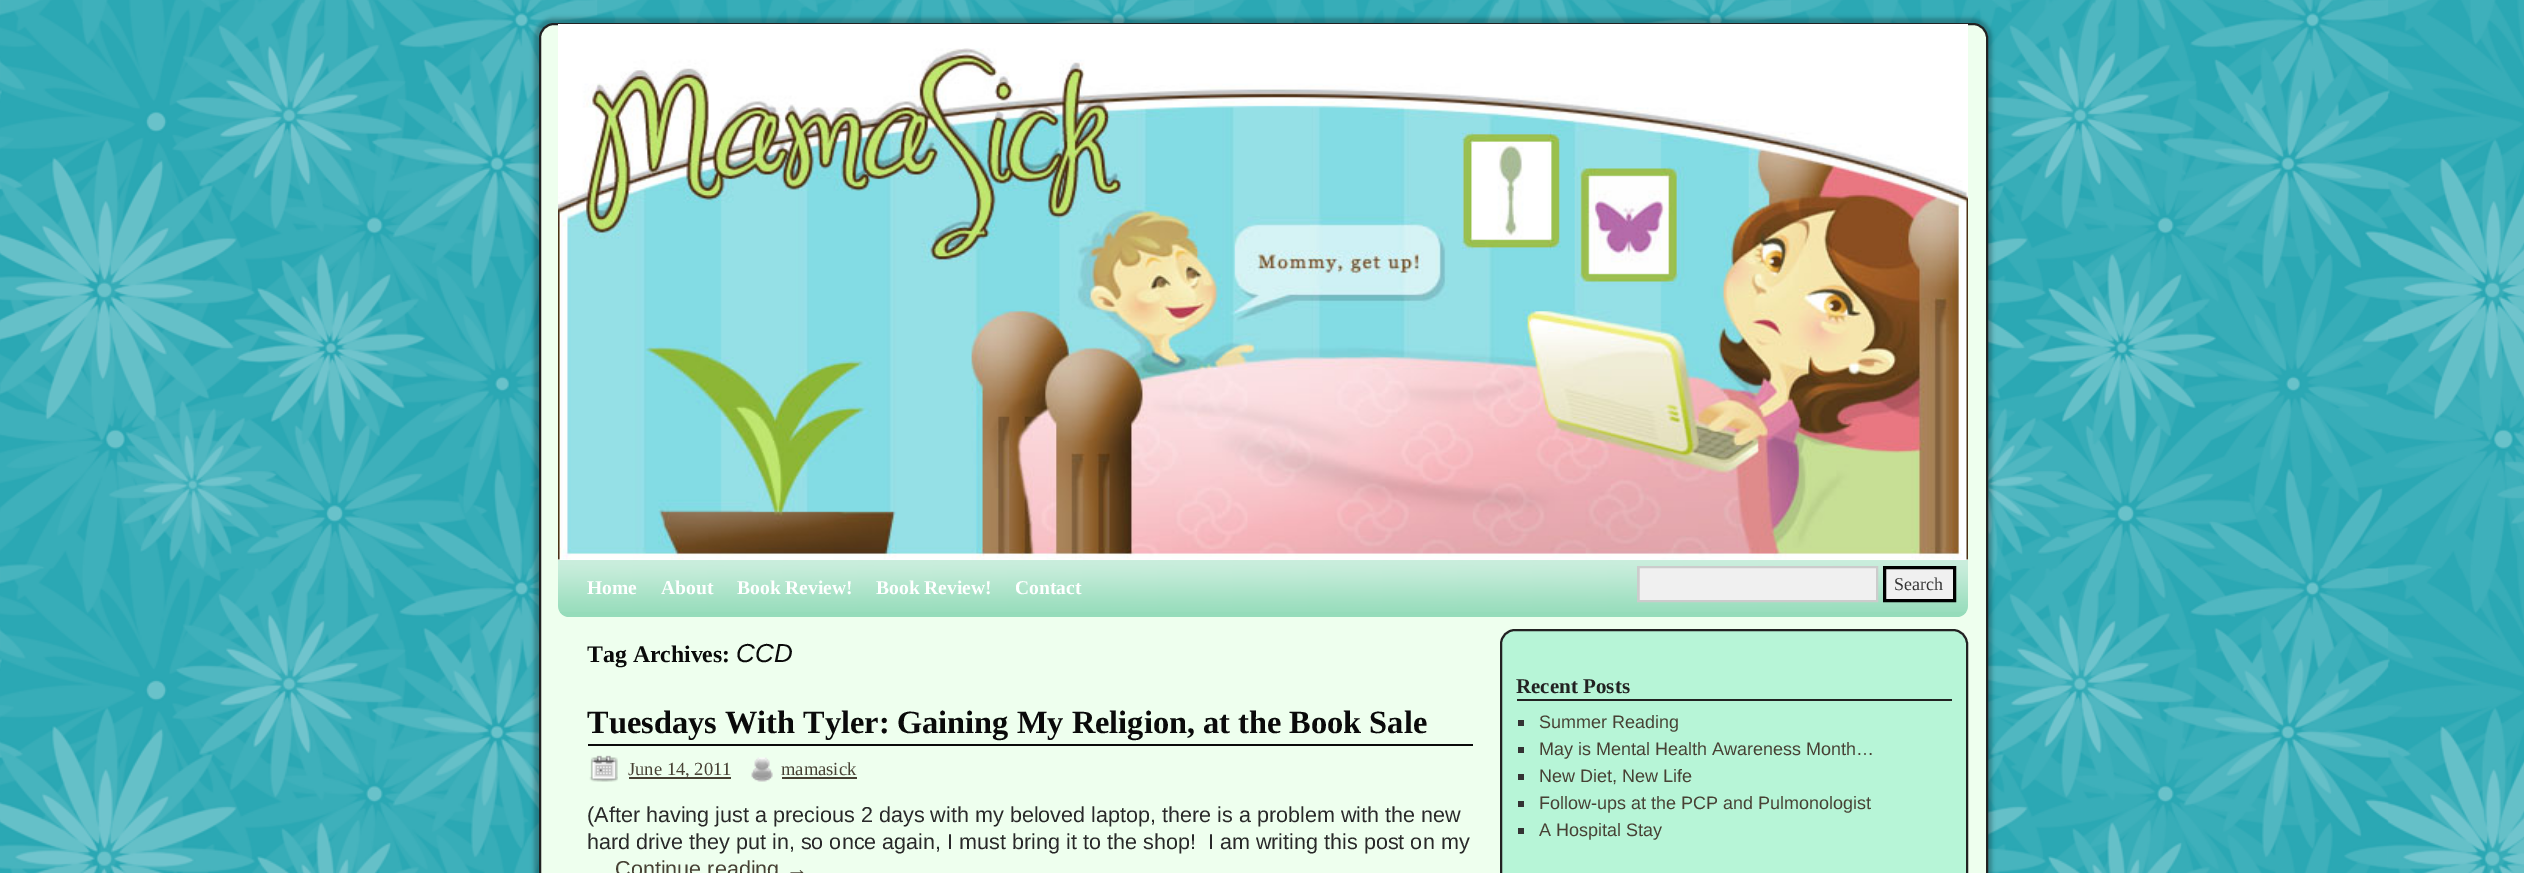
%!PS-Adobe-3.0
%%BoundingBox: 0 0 2524 873
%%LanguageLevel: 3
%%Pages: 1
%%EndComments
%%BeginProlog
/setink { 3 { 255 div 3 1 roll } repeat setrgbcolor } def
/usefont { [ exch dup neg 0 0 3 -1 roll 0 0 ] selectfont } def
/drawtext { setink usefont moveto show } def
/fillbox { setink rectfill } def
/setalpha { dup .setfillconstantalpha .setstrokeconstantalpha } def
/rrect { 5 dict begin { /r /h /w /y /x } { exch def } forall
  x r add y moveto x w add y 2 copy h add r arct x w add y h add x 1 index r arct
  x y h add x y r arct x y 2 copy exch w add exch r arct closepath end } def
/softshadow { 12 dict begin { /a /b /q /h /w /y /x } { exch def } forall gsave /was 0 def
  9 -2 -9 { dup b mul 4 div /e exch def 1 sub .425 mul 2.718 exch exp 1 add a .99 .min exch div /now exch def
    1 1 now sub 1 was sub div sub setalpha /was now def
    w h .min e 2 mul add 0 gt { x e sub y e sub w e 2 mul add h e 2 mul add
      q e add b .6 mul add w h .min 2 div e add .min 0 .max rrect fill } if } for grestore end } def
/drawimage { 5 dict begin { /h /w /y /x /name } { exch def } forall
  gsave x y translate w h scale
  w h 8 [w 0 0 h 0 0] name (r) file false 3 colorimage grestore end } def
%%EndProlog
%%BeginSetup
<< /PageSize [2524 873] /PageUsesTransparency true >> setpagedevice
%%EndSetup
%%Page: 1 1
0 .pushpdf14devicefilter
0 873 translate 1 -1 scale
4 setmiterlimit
0 0 2524 873 255 255 255 fillbox
(assets/img1.rgb) 0 0 2524 873 drawimage
0 0 0 setink
534 18 1458 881 20 2 0.25 softshadow
238 255 238 setink
540 24 1447 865 14 rrect gsave fill grestore
34 34 34 setink
2 setlinewidth
stroke
558 24 1410 536 255 255 255 fillbox
(assets/img2.rgb) 558 48 1410 512 drawimage
149 220 186 setink
558 560 moveto 1968 560 lineto 1968 606 lineto 1968 612 1963 617 1957 617 curveto 569 617 lineto 563 617 558 612 558 606 curveto closepath fill
(assets/img3.rgb) 558 559 1410 53 drawimage
(Home) 587 594 /LiberationSerif-Bold 19.5 255 255 255 drawtext
(About) 661 594 /LiberationSerif-Bold 19.5 255 255 255 drawtext
(Book Review!) 737 594 /LiberationSerif-Bold 19.5 255 255 255 drawtext
(Book Review!) 876 594 /LiberationSerif-Bold 19.5 255 255 255 drawtext
(Contact) 1015 594 /LiberationSerif-Bold 19.5 255 255 255 drawtext
1640 568 236 32 240 240 240 fillbox
gsave
1638 567 239 33 rectclip
216 216 216 setink
1490 418 moveto 2025 418 lineto 2025 748 lineto 1490 748 lineto closepath 1640 568 moveto 1878 568 lineto 1878 602 lineto 1640 602 lineto closepath eofill
grestore
204 204 204 setink
1638 567 239 34 rectstroke
240 240 240 setink
1884.5 567.5 moveto 1954.5 567.5 lineto 1954.5 600.5 lineto 1884.5 600.5 lineto closepath gsave fill grestore
0 0 0 setink
3 setlinewidth
stroke
(Search) 1894 590 /LiberationSerif-Regular 18 51 51 51 drawtext
(Tag Archives:) 587 662 /LiberationSerif-Bold 23.75 10 10 10 drawtext
(CCD) 736 662 /LiberationSans-Italic 26 10 10 10 drawtext
588 744 885 2 10 10 10 fillbox
(Tuesdays With Tyler:) 587 733 /LiberationSerif-Bold 32.4 10 10 10 drawtext
(Gaining My Religion, at the Book Sale) 897 733 /LiberationSerif-Bold 32.4 10 10 10 drawtext
(assets/img4.rgb) 589 755 29 27 drawimage
629 777 102 2 71 65 52 fillbox
(June 14, 2011) 628 775 /LiberationSerif-Regular 18.5 71 65 52 drawtext
(assets/img5.rgb) 751 757 22 25 drawimage
(mamasick) 781 775 /LiberationSerif-Regular 18.5 71 65 52 drawtext
782 777 75 2 71 65 52 fillbox
(\(After having just a precious 2 days with my beloved laptop, there is a problem with the new) 587 822 /LiberationSans-Regular 21.6 41 41 41 drawtext
(hard drive they put in, so once again, I must bring it to the shop!  I am writing this post on my) 587 849 /LiberationSans-Regular 21.6 41 41 41 drawtext
(Continue reading →) 615 876 /LiberationSans-Regular 21.6 71 65 52 drawtext
183 245 215 setink
1501 630 466 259 14 rrect gsave fill grestore
34 34 34 setink
2 setlinewidth
stroke
1517 699 435 2 34 34 34 fillbox
(Recent Posts) 1516 693 /LiberationSerif-Bold 21 34 34 34 drawtext
1518 720 6 6 51 51 51 fillbox
(Summer Reading) 1539 728 /LiberationSans-Regular 18 71 65 52 drawtext
1518 747 6 6 51 51 51 fillbox
(May is Mental Health Awareness Month…) 1539 755 /LiberationSans-Regular 18 71 65 52 drawtext
1518 774 6 6 51 51 51 fillbox
(New Diet, New Life) 1539 782 /LiberationSans-Regular 18 71 65 52 drawtext
1518 801 6 6 51 51 51 fillbox
(Follow-ups at the PCP and Pulmonologist) 1539 809 /LiberationSans-Regular 18 71 65 52 drawtext
1518 828 6 6 51 51 51 fillbox
(A Hospital Stay) 1539 836 /LiberationSans-Regular 18 71 65 52 drawtext
.poppdf14devicefilter showpage
%%EOF
